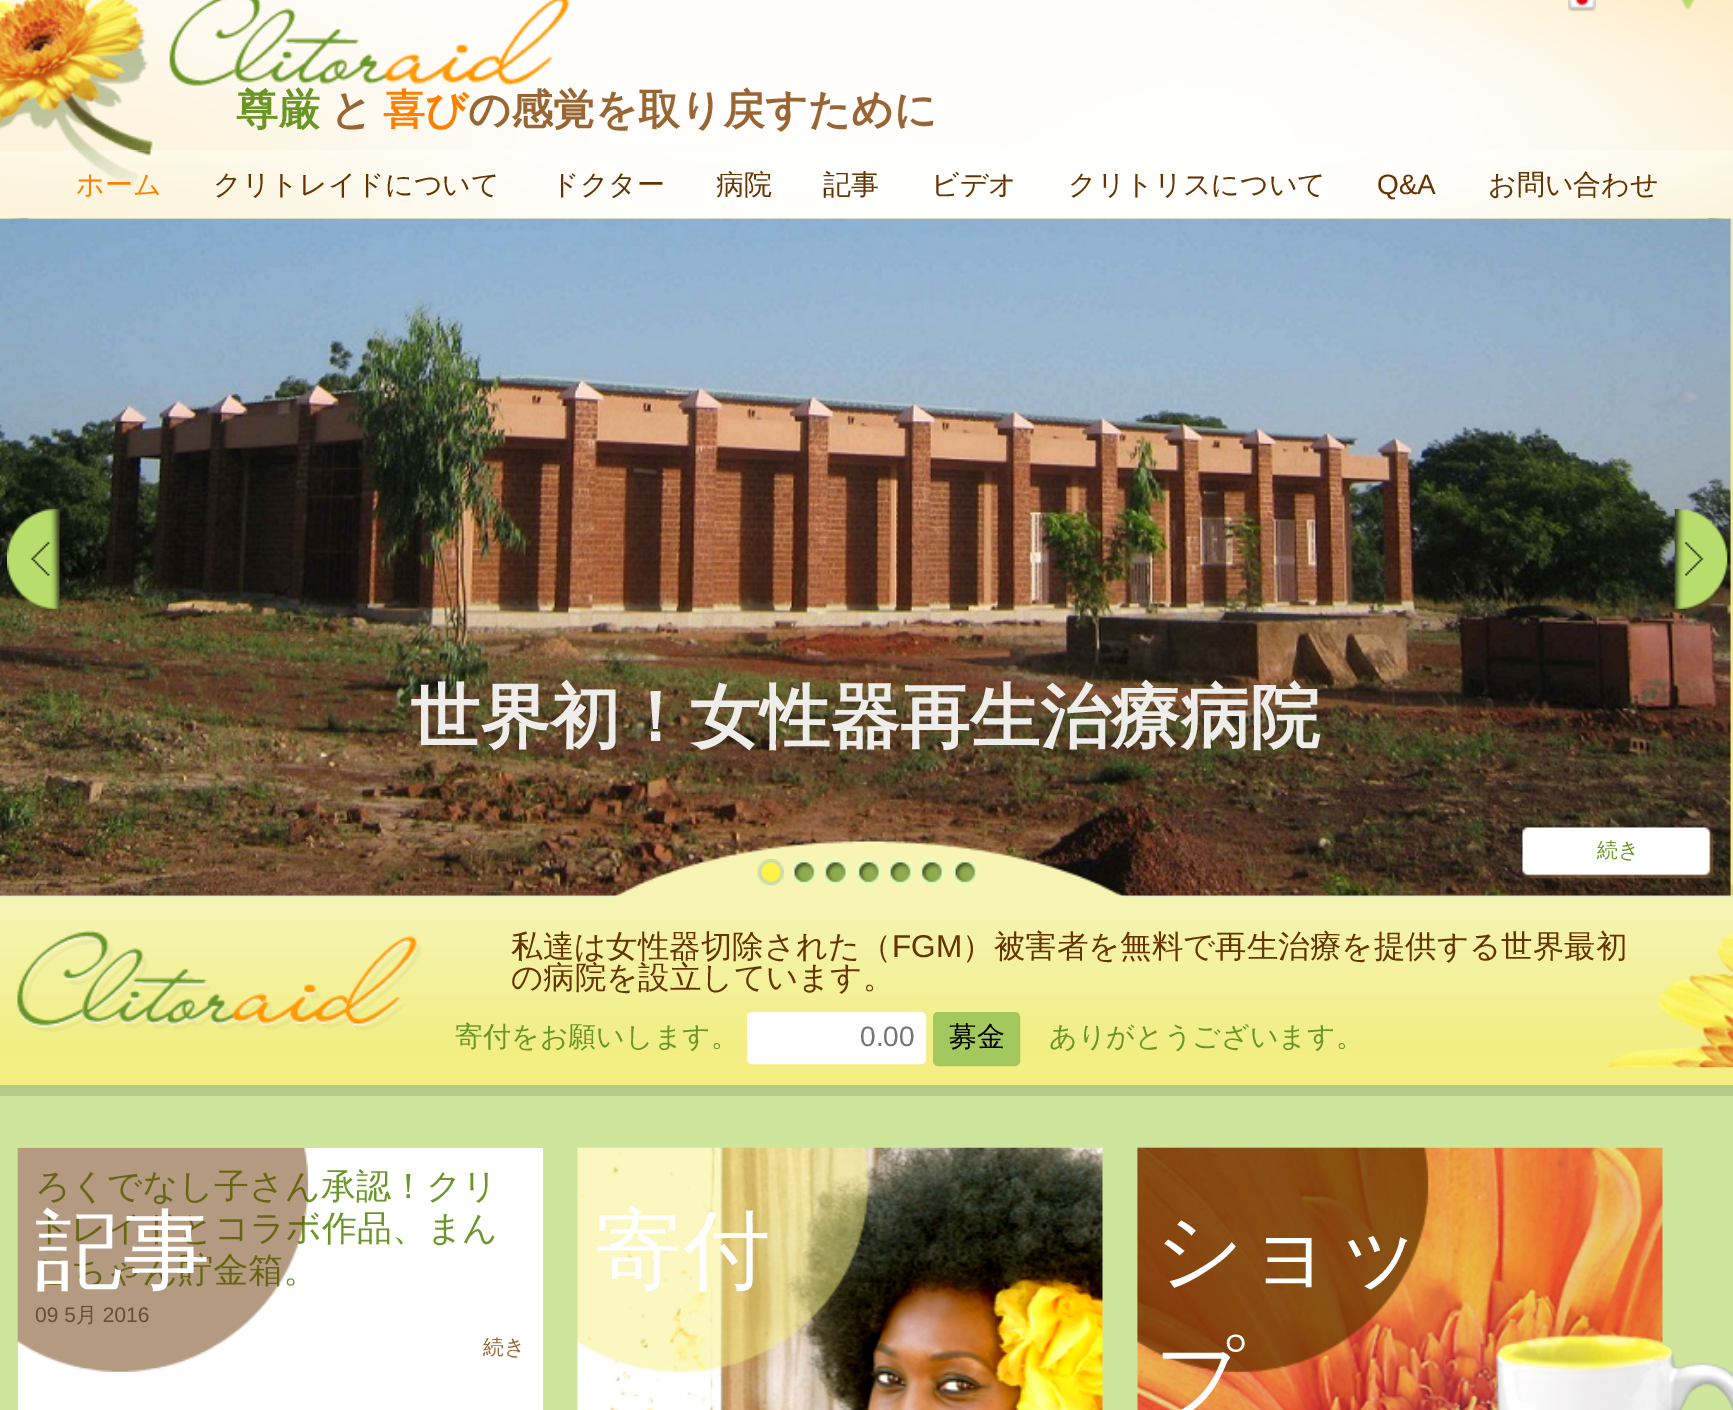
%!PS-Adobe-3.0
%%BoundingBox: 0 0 1733 1410
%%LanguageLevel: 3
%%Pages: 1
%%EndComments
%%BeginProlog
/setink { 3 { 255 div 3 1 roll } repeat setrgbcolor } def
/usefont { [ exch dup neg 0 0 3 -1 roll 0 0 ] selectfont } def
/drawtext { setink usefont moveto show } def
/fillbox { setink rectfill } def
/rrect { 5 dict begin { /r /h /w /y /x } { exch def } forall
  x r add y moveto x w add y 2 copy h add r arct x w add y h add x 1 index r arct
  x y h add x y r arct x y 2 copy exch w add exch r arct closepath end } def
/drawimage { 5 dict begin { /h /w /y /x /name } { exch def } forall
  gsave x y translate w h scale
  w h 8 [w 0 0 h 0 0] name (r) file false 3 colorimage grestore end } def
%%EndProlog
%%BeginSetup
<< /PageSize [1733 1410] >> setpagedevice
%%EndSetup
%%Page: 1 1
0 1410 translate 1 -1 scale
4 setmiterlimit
0 0 1733 1410 255 255 255 fillbox
(assets/img1.rgb) 0 0 1733 219 drawimage
(assets/img2.rgb) 0 0 1733 219 drawimage
(assets/img3.rgb) 1568 0 28 12 drawimage
(assets/img4.rgb) 1681 0 14 11 drawimage
(assets/img6.rgb) 77 150 75 37 drawimage
(assets/img5.rgb) 0 0 570 151 drawimage
(尊厳) 236 124 /WenQuanYiZenHei-Bold 42 105 150 38 drawtext
(と) 330 124 /WenQuanYiZenHei-Bold 42 153 102 51 drawtext
(喜び) 383 124 /WenQuanYiZenHei-Bold 42 255 127 0 drawtext
(の感覚を取り戻すために) 468 124 /WenQuanYiZenHei-Bold 42 153 102 51 drawtext
(ホーム) 76 194 /WenQuanYiZenHei-Medium 28 255 127 0 drawtext
(クリトレイドについて) 213 194 /WenQuanYiZenHei-Medium 28 102 51 0 drawtext
(ドクター) 551 194 /WenQuanYiZenHei-Medium 28 102 51 0 drawtext
(病院) 716 194 /WenQuanYiZenHei-Medium 28 102 51 0 drawtext
(記事) 823 194 /WenQuanYiZenHei-Medium 28 102 51 0 drawtext
(ビデオ) 931 194 /WenQuanYiZenHei-Medium 28 102 51 0 drawtext
(クリトリスについて) 1068 194 /WenQuanYiZenHei-Medium 28 102 51 0 drawtext
(Q&A) 1377 194 /LiberationSans-Regular 28 102 51 0 drawtext
(お問い合わせ) 1488 194 /WenQuanYiZenHei-Medium 28 102 51 0 drawtext
(assets/img19.rgb) 0 895 1733 1 drawimage
0 1067 1733 18 245 239 129 fillbox
(assets/img20.rgb) 0 895 1733 173 drawimage
(assets/img7.rgb) 0 218 1733 678 drawimage
(assets/img8.rgb) 12 218 1712 1 drawimage
(assets/img11.rgb) 0 218 1731 678 drawimage
(assets/img9.rgb) 7 509 53 100 drawimage
(assets/img10.rgb) 1674 509 54 100 drawimage
(世界初！女性器再生治療病院) 410 741 /WenQuanYiZenHei-Bold 70 239 237 234 drawtext
(assets/img12.rgb) 1522 827 192 52 drawimage
(続き) 1597 857 /WenQuanYiZenHei-Medium 21 105 150 38 drawtext
(assets/img13.rgb) 614 841 510 57 drawimage
(assets/img14.rgb) 757 859 27 27 drawimage
(assets/img15.rgb) 791 859 27 27 drawimage
(assets/img16.rgb) 822 859 27 26 drawimage
(assets/img17.rgb) 855 859 27 27 drawimage
(assets/img18.rgb) 887 859 27 27 drawimage
(assets/img17.rgb) 918 859 27 27 drawimage
(assets/img15.rgb) 952 859 27 27 drawimage
(assets/img21.rgb) 17 930 405 102 drawimage
(私達は女性器切除された（) 511 957 /WenQuanYiZenHei-Medium 31.5 102 51 0 drawtext
(FGM) 892 957 /LiberationSans-Regular 31.5 102 51 0 drawtext
(）被害者を無料で再生治療を提供する世界最初) 962 957 /WenQuanYiZenHei-Medium 31.5 102 51 0 drawtext
(の病院を設立しています。) 511 988 /WenQuanYiZenHei-Medium 31.5 102 51 0 drawtext
(寄付をお願いします。) 455 1046 /WenQuanYiZenHei-Medium 28 105 150 38 drawtext
255 255 255 setink
748 1013 177 50 4 rrect gsave fill grestore
2 setlinewidth
stroke
(0.00) 860 1046 /LiberationSans-Regular 28 117 117 117 drawtext
163 200 93 setink
934 1013 85 52 4 rrect gsave fill grestore
stroke
(募金) 949 1046 /WenQuanYiZenHei-Medium 28 0 0 0 drawtext
(ありがとうございます。) 1049 1046 /WenQuanYiZenHei-Medium 28 105 150 38 drawtext
0 1096 1733 314 206 230 156 fillbox
0 1085 1733 11 181 202 137 fillbox
18 1148 525 262 255 255 255 fillbox
(ろくでなし子さん承認！クリ) 35 1198 /WenQuanYiZenHei-Medium 35 105 150 38 drawtext
(トレイドとコラボ作品、まん) 35 1240 /WenQuanYiZenHei-Medium 35 105 150 38 drawtext
(こちゃん貯金箱。) 35 1282 /WenQuanYiZenHei-Medium 35 105 150 38 drawtext
(09 5) 35 1322 /LiberationSans-Regular 21 102 102 102 drawtext
(月) 76 1322 /WenQuanYiZenHei-Medium 21 102 102 102 drawtext
(2016) 103 1322 /LiberationSans-Regular 21 102 102 102 drawtext
(続き) 483 1354 /WenQuanYiZenHei-Medium 21 153 102 51 drawtext
(assets/img22.rgb) 17 1147 291 225 drawimage
(記事) 35 1280 /WenQuanYiZenHei-Medium 87.5 255 255 255 drawtext
(assets/img23.rgb) 577 1147 526 263 drawimage
(寄付) 595 1280 /WenQuanYiZenHei-Medium 87.5 255 255 255 drawtext
(assets/img24.rgb) 1137 1147 596 263 drawimage
(assets/img25.rgb) 1137 1147 291 225 drawimage
(ショッ) 1155 1280 /WenQuanYiZenHei-Medium 87.5 255 255 255 drawtext
(プ) 1155 1408 /WenQuanYiZenHei-Medium 87.5 255 255 255 drawtext
showpage
%%EOF
